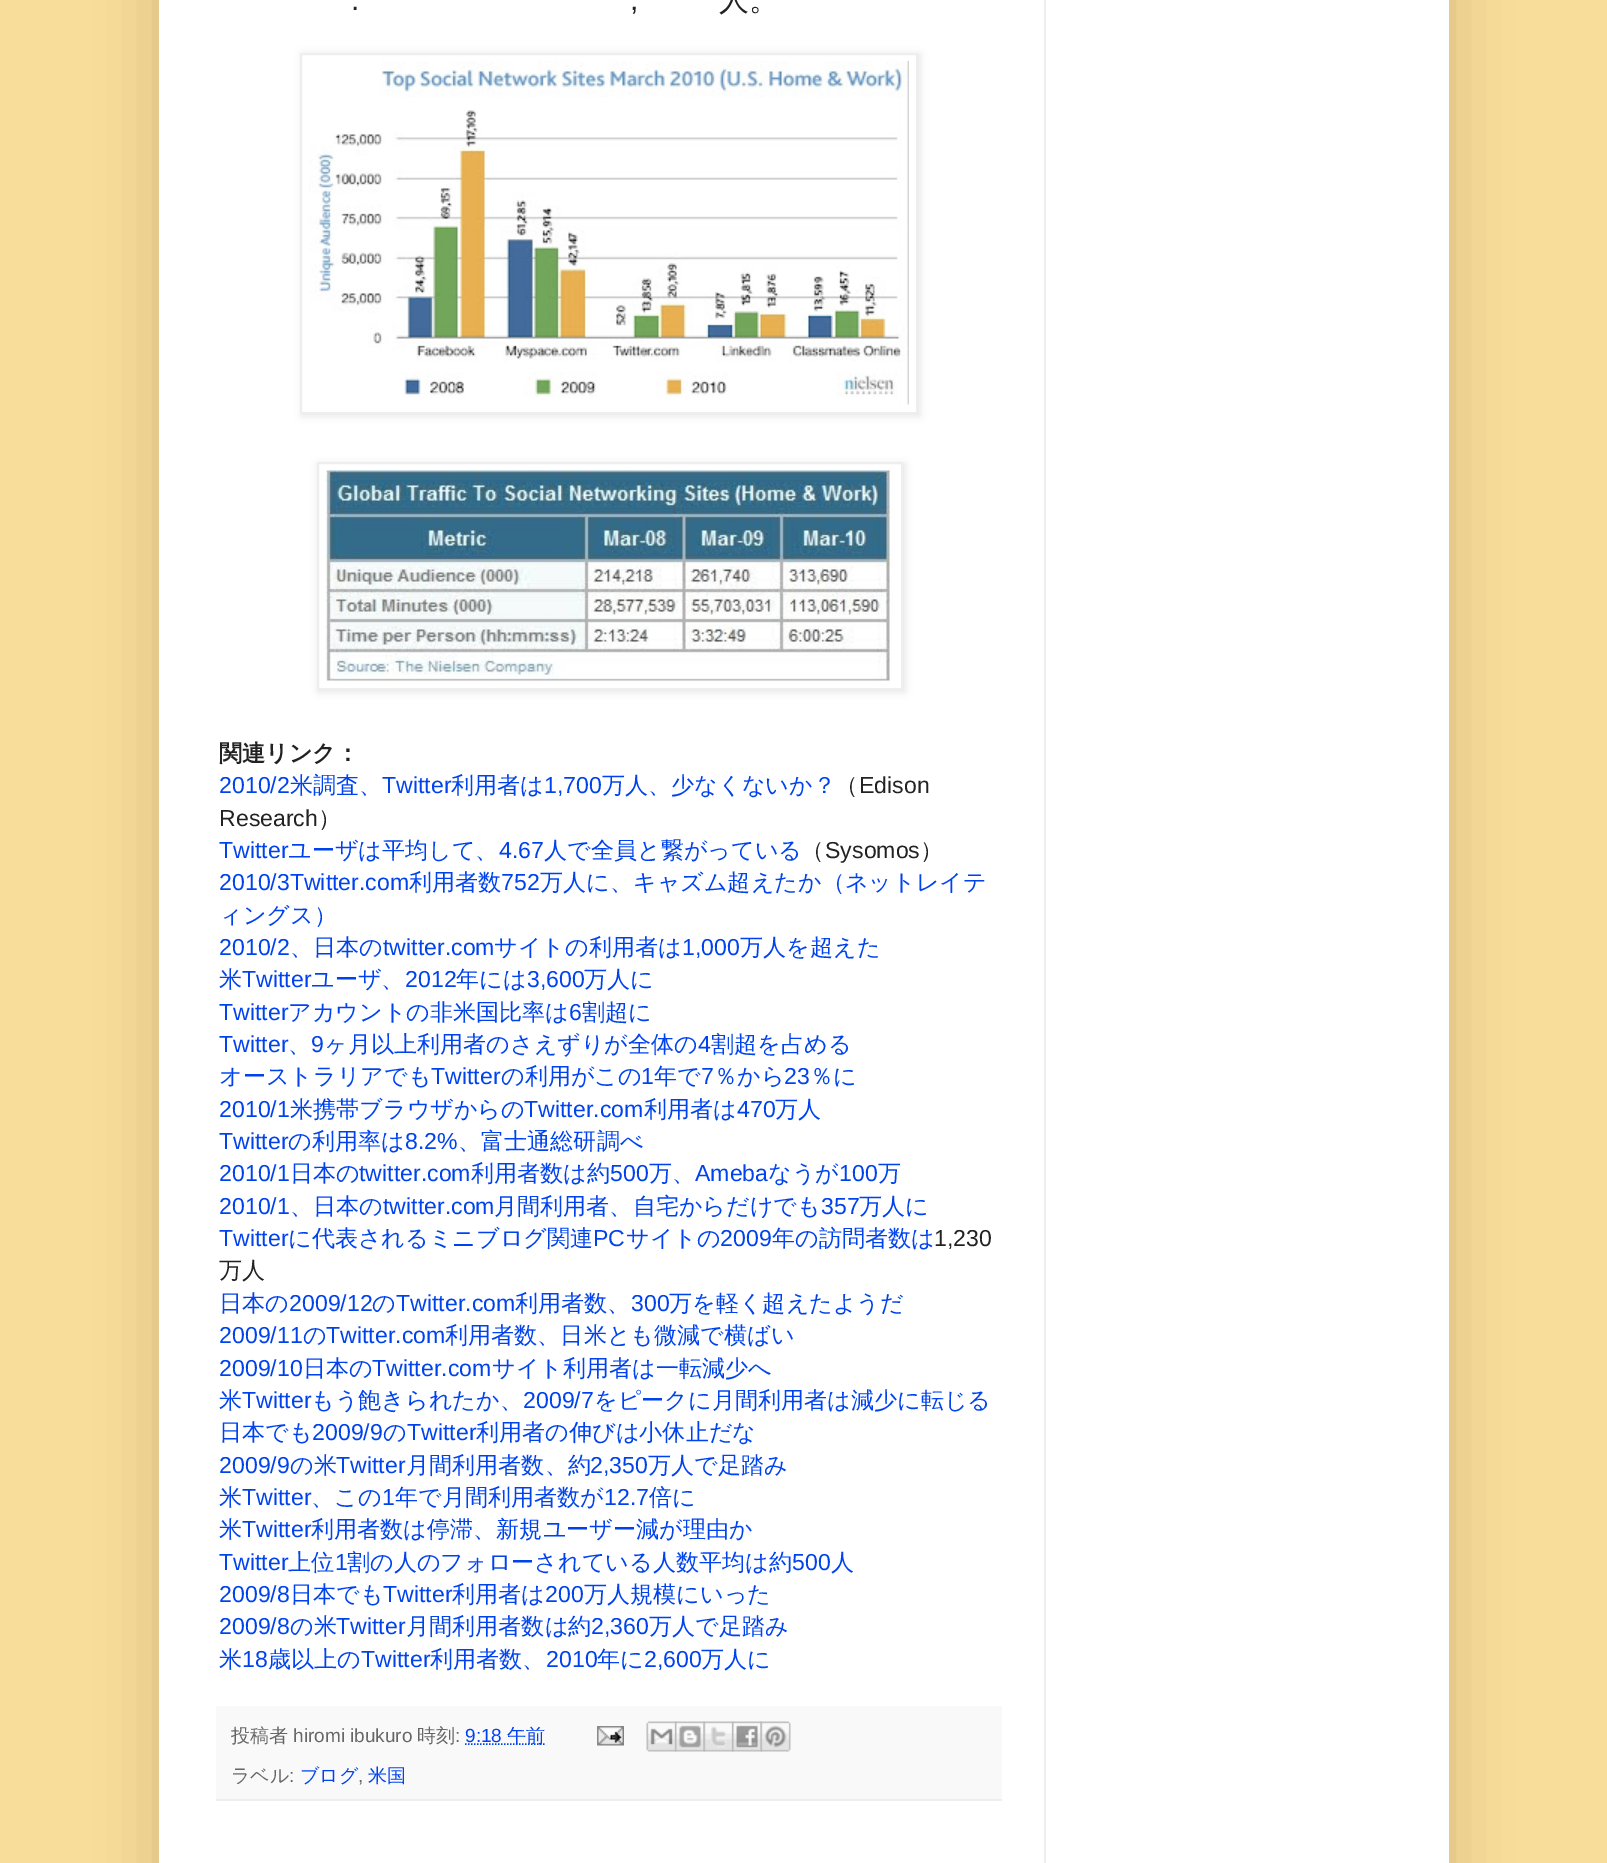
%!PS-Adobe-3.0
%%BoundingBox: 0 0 1607 1863
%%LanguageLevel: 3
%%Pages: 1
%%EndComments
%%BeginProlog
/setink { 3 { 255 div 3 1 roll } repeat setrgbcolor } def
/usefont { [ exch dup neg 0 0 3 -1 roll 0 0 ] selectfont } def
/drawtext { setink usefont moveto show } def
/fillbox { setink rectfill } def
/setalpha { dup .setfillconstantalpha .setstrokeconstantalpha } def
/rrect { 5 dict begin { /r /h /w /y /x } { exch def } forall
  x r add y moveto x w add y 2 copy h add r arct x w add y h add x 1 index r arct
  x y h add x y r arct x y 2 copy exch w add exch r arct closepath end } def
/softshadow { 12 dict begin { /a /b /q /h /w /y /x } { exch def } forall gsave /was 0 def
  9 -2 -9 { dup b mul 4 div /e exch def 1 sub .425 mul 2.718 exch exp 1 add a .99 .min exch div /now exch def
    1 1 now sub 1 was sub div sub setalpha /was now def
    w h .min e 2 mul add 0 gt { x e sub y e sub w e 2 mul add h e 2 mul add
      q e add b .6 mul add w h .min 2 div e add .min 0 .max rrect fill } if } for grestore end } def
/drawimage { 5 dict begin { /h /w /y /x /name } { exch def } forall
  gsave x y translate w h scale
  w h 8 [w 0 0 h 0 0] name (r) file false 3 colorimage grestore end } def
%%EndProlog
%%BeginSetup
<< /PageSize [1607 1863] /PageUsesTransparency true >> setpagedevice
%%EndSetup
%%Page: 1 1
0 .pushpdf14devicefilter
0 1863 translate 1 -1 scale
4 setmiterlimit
0 0 1607 1863 248 220 153 fillbox
0 0 0 setink
159 -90 1290 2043 0 30 0.15 softshadow
159 0 1290 1863 255 255 255 fillbox
(.) 351 10 /LiberationSans-Regular 30 34 34 34 drawtext
(,) 630 10 /LiberationSans-Regular 30 34 34 34 drawtext
(人。) 719 10 /WenQuanYiZenHei-Medium 30 34 34 34 drawtext
gsave
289 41 moveto 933 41 lineto 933 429 lineto 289 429 lineto closepath 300 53 moveto 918 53 lineto 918 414 lineto 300 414 lineto closepath eoclip newpath
0 0 0 setink
302 54 618 362 0 4 0.1 softshadow
grestore
238 238 238 setink
2 setlinewidth
301 54 616 359 rectstroke
(assets/img1.rgb) 309 61 600 344 drawimage
gsave
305 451 moveto 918 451 lineto 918 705 lineto 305 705 lineto closepath 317 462 moveto 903 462 lineto 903 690 lineto 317 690 lineto closepath eoclip newpath
0 0 0 setink
318 464 587 228 0 4 0.1 softshadow
grestore
318 463 584 226 rectstroke
(assets/img2.rgb) 325 470 568 211 drawimage
(関連リンク：) 219 761 /WenQuanYiZenHei-Bold 23.1 34 34 34 drawtext
(2010/2) 219 793 /LiberationSans-Regular 23.1 0 67 238 drawtext
(米調査、) 290 793 /WenQuanYiZenHei-Medium 23.1 0 67 238 drawtext
(Twitter) 382 793 /LiberationSans-Regular 23.1 0 67 238 drawtext
(利用者は) 451 793 /WenQuanYiZenHei-Medium 23.1 0 67 238 drawtext
(1,700) 544 793 /LiberationSans-Regular 23.1 0 67 238 drawtext
(万人、少なくないか？) 602 793 /WenQuanYiZenHei-Medium 23.1 0 67 238 drawtext
(（) 835 793 /WenQuanYiZenHei-Medium 23.1 34 34 34 drawtext
(Edison) 859 793 /LiberationSans-Regular 23.1 34 34 34 drawtext
(Research) 219 826 /LiberationSans-Regular 23.1 34 34 34 drawtext
(）) 318 826 /WenQuanYiZenHei-Medium 23.1 34 34 34 drawtext
(Twitter) 219 858 /LiberationSans-Regular 23.1 0 67 238 drawtext
(ユーザは平均して、) 288 858 /WenQuanYiZenHei-Medium 23.1 0 67 238 drawtext
(4.67) 499 858 /LiberationSans-Regular 23.1 0 67 238 drawtext
(人で全員と繋がっている) 544 858 /WenQuanYiZenHei-Medium 23.1 0 67 238 drawtext
(（) 801 858 /WenQuanYiZenHei-Medium 23.1 34 34 34 drawtext
(Sysomos) 825 858 /LiberationSans-Regular 23.1 34 34 34 drawtext
(）) 920 858 /WenQuanYiZenHei-Medium 23.1 34 34 34 drawtext
(2010/3Twitter.com) 219 890 /LiberationSans-Regular 23.1 0 67 238 drawtext
(利用者数) 409 890 /WenQuanYiZenHei-Medium 23.1 0 67 238 drawtext
(752) 501 890 /LiberationSans-Regular 23.1 0 67 238 drawtext
(万人に、キャズム超えたか（ネットレイテ) 540 890 /WenQuanYiZenHei-Medium 23.1 0 67 238 drawtext
(ィングス）) 219 923 /WenQuanYiZenHei-Medium 23.1 0 67 238 drawtext
(2010/2) 219 955 /LiberationSans-Regular 23.1 0 67 238 drawtext
(、日本の) 290 955 /WenQuanYiZenHei-Medium 23.1 0 67 238 drawtext
(twitter.com) 383 955 /LiberationSans-Regular 23.1 0 67 238 drawtext
(サイトの利用者は) 494 955 /WenQuanYiZenHei-Medium 23.1 0 67 238 drawtext
(1,000) 682 955 /LiberationSans-Regular 23.1 0 67 238 drawtext
(万人を超えた) 740 955 /WenQuanYiZenHei-Medium 23.1 0 67 238 drawtext
(米) 219 987 /WenQuanYiZenHei-Medium 23.1 0 67 238 drawtext
(Twitter) 242 987 /LiberationSans-Regular 23.1 0 67 238 drawtext
(ユーザ、) 311 987 /WenQuanYiZenHei-Medium 23.1 0 67 238 drawtext
(2012) 405 987 /LiberationSans-Regular 23.1 0 67 238 drawtext
(年には) 456 987 /WenQuanYiZenHei-Medium 23.1 0 67 238 drawtext
(3,600) 527 987 /LiberationSans-Regular 23.1 0 67 238 drawtext
(万人に) 584 987 /WenQuanYiZenHei-Medium 23.1 0 67 238 drawtext
(Twitter) 219 1020 /LiberationSans-Regular 23.1 0 67 238 drawtext
(アカウントの非米国比率は) 288 1020 /WenQuanYiZenHei-Medium 23.1 0 67 238 drawtext
(6) 569 1020 /LiberationSans-Regular 23.1 0 67 238 drawtext
(割超に) 582 1020 /WenQuanYiZenHei-Medium 23.1 0 67 238 drawtext
(Twitter) 219 1052 /LiberationSans-Regular 23.1 0 67 238 drawtext
(9) 311 1052 /LiberationSans-Regular 23.1 0 67 238 drawtext
(ヶ月以上利用者のさえずりが全体の) 324 1052 /WenQuanYiZenHei-Medium 23.1 0 67 238 drawtext
(4) 698 1052 /LiberationSans-Regular 23.1 0 67 238 drawtext
(割超を占める) 711 1052 /WenQuanYiZenHei-Medium 23.1 0 67 238 drawtext
(、) 288 1052 /WenQuanYiZenHei-Medium 23.1 0 67 238 drawtext
(オーストラリアでも) 219 1084 /WenQuanYiZenHei-Medium 23.1 0 67 238 drawtext
(Twitter) 431 1084 /LiberationSans-Regular 23.1 0 67 238 drawtext
(の利用がこの) 501 1084 /WenQuanYiZenHei-Medium 23.1 0 67 238 drawtext
(1) 641 1084 /LiberationSans-Regular 23.1 0 67 238 drawtext
(年で) 654 1084 /WenQuanYiZenHei-Medium 23.1 0 67 238 drawtext
(7) 701 1084 /LiberationSans-Regular 23.1 0 67 238 drawtext
(％から) 714 1084 /WenQuanYiZenHei-Medium 23.1 0 67 238 drawtext
(23) 784 1084 /LiberationSans-Regular 23.1 0 67 238 drawtext
(％に) 810 1084 /WenQuanYiZenHei-Medium 23.1 0 67 238 drawtext
(2010/1) 219 1117 /LiberationSans-Regular 23.1 0 67 238 drawtext
(米携帯ブラウザからの) 290 1117 /WenQuanYiZenHei-Medium 23.1 0 67 238 drawtext
(Twitter.com) 524 1117 /LiberationSans-Regular 23.1 0 67 238 drawtext
(利用者は) 644 1117 /WenQuanYiZenHei-Medium 23.1 0 67 238 drawtext
(470) 737 1117 /LiberationSans-Regular 23.1 0 67 238 drawtext
(万人) 775 1117 /WenQuanYiZenHei-Medium 23.1 0 67 238 drawtext
(Twitter) 219 1149 /LiberationSans-Regular 23.1 0 67 238 drawtext
(の利用率は) 288 1149 /WenQuanYiZenHei-Medium 23.1 0 67 238 drawtext
(8.2%) 405 1149 /LiberationSans-Regular 23.1 0 67 238 drawtext
(、富士通総研調べ) 458 1149 /WenQuanYiZenHei-Medium 23.1 0 67 238 drawtext
(2010/1) 219 1181 /LiberationSans-Regular 23.1 0 67 238 drawtext
(日本の) 290 1181 /WenQuanYiZenHei-Medium 23.1 0 67 238 drawtext
(twitter.com) 359 1181 /LiberationSans-Regular 23.1 0 67 238 drawtext
(利用者数は約) 471 1181 /WenQuanYiZenHei-Medium 23.1 0 67 238 drawtext
(500) 610 1181 /LiberationSans-Regular 23.1 0 67 238 drawtext
(万、) 649 1181 /WenQuanYiZenHei-Medium 23.1 0 67 238 drawtext
(Ameba) 695 1181 /LiberationSans-Regular 23.1 0 67 238 drawtext
(なうが) 768 1181 /WenQuanYiZenHei-Medium 23.1 0 67 238 drawtext
(100) 839 1181 /LiberationSans-Regular 23.1 0 67 238 drawtext
(万) 878 1181 /WenQuanYiZenHei-Medium 23.1 0 67 238 drawtext
(2010/1) 219 1214 /LiberationSans-Regular 23.1 0 67 238 drawtext
(、日本の) 290 1214 /WenQuanYiZenHei-Medium 23.1 0 67 238 drawtext
(twitter.com) 383 1214 /LiberationSans-Regular 23.1 0 67 238 drawtext
(月間利用者、自宅からだけでも) 494 1214 /WenQuanYiZenHei-Medium 23.1 0 67 238 drawtext
(357) 821 1214 /LiberationSans-Regular 23.1 0 67 238 drawtext
(万人に) 859 1214 /WenQuanYiZenHei-Medium 23.1 0 67 238 drawtext
(Twitter) 219 1246 /LiberationSans-Regular 23.1 0 67 238 drawtext
(に代表されるミニブログ関連) 288 1246 /WenQuanYiZenHei-Medium 23.1 0 67 238 drawtext
(PC) 593 1246 /LiberationSans-Regular 23.1 0 67 238 drawtext
(サイトの) 626 1246 /WenQuanYiZenHei-Medium 23.1 0 67 238 drawtext
(2009) 720 1246 /LiberationSans-Regular 23.1 0 67 238 drawtext
(年の訪問者数は) 772 1246 /WenQuanYiZenHei-Medium 23.1 0 67 238 drawtext
(1,230) 934 1246 /LiberationSans-Regular 23.1 34 34 34 drawtext
(万人) 219 1278 /WenQuanYiZenHei-Medium 23.1 34 34 34 drawtext
(日本の) 219 1311 /WenQuanYiZenHei-Medium 23.1 0 67 238 drawtext
(2009/12) 289 1311 /LiberationSans-Regular 23.1 0 67 238 drawtext
(の) 372 1311 /WenQuanYiZenHei-Medium 23.1 0 67 238 drawtext
(Twitter.com) 396 1311 /LiberationSans-Regular 23.1 0 67 238 drawtext
(利用者数、) 515 1311 /WenQuanYiZenHei-Medium 23.1 0 67 238 drawtext
(300) 631 1311 /LiberationSans-Regular 23.1 0 67 238 drawtext
(万を軽く超えたようだ) 669 1311 /WenQuanYiZenHei-Medium 23.1 0 67 238 drawtext
(2009/11) 219 1343 /LiberationSans-Regular 23.1 0 67 238 drawtext
(の) 303 1343 /WenQuanYiZenHei-Medium 23.1 0 67 238 drawtext
(Twitter.com) 326 1343 /LiberationSans-Regular 23.1 0 67 238 drawtext
(利用者数、日米とも微減で横ばい) 445 1343 /WenQuanYiZenHei-Medium 23.1 0 67 238 drawtext
(2009/10) 219 1376 /LiberationSans-Regular 23.1 0 67 238 drawtext
(日本の) 303 1376 /WenQuanYiZenHei-Medium 23.1 0 67 238 drawtext
(Twitter.com) 372 1376 /LiberationSans-Regular 23.1 0 67 238 drawtext
(サイト利用者は一転減少へ) 492 1376 /WenQuanYiZenHei-Medium 23.1 0 67 238 drawtext
(米) 219 1408 /WenQuanYiZenHei-Medium 23.1 0 67 238 drawtext
(Twitter) 242 1408 /LiberationSans-Regular 23.1 0 67 238 drawtext
(もう飽きられたか、) 311 1408 /WenQuanYiZenHei-Medium 23.1 0 67 238 drawtext
(2009/7) 523 1408 /LiberationSans-Regular 23.1 0 67 238 drawtext
(をピークに月間利用者は減少に転じる) 594 1408 /WenQuanYiZenHei-Medium 23.1 0 67 238 drawtext
(日本でも) 219 1440 /WenQuanYiZenHei-Medium 23.1 0 67 238 drawtext
(2009/9) 312 1440 /LiberationSans-Regular 23.1 0 67 238 drawtext
(の) 383 1440 /WenQuanYiZenHei-Medium 23.1 0 67 238 drawtext
(Twitter) 407 1440 /LiberationSans-Regular 23.1 0 67 238 drawtext
(利用者の伸びは小休止だな) 476 1440 /WenQuanYiZenHei-Medium 23.1 0 67 238 drawtext
(2009/9) 219 1473 /LiberationSans-Regular 23.1 0 67 238 drawtext
(の米) 290 1473 /WenQuanYiZenHei-Medium 23.1 0 67 238 drawtext
(Twitter) 336 1473 /LiberationSans-Regular 23.1 0 67 238 drawtext
(月間利用者数、約) 406 1473 /WenQuanYiZenHei-Medium 23.1 0 67 238 drawtext
(2,350) 590 1473 /LiberationSans-Regular 23.1 0 67 238 drawtext
(万人で足踏み) 648 1473 /WenQuanYiZenHei-Medium 23.1 0 67 238 drawtext
(米) 219 1505 /WenQuanYiZenHei-Medium 23.1 0 67 238 drawtext
(Twitter) 242 1505 /LiberationSans-Regular 23.1 0 67 238 drawtext
(、この) 311 1505 /WenQuanYiZenHei-Medium 23.1 0 67 238 drawtext
(1) 382 1505 /LiberationSans-Regular 23.1 0 67 238 drawtext
(年で月間利用者数が) 395 1505 /WenQuanYiZenHei-Medium 23.1 0 67 238 drawtext
(12.7) 604 1505 /LiberationSans-Regular 23.1 0 67 238 drawtext
(倍に) 649 1505 /WenQuanYiZenHei-Medium 23.1 0 67 238 drawtext
(米) 219 1537 /WenQuanYiZenHei-Medium 23.1 0 67 238 drawtext
(Twitter) 242 1537 /LiberationSans-Regular 23.1 0 67 238 drawtext
(利用者数は停滞、新規ユーザー減が理由か) 311 1537 /WenQuanYiZenHei-Medium 23.1 0 67 238 drawtext
(Twitter) 219 1570 /LiberationSans-Regular 23.1 0 67 238 drawtext
(上位) 288 1570 /WenQuanYiZenHei-Medium 23.1 0 67 238 drawtext
(1) 335 1570 /LiberationSans-Regular 23.1 0 67 238 drawtext
(割の人のフォローされている人数平均は約) 347 1570 /WenQuanYiZenHei-Medium 23.1 0 67 238 drawtext
(500) 792 1570 /LiberationSans-Regular 23.1 0 67 238 drawtext
(人) 831 1570 /WenQuanYiZenHei-Medium 23.1 0 67 238 drawtext
(2009/8) 219 1602 /LiberationSans-Regular 23.1 0 67 238 drawtext
(日本でも) 290 1602 /WenQuanYiZenHei-Medium 23.1 0 67 238 drawtext
(Twitter) 383 1602 /LiberationSans-Regular 23.1 0 67 238 drawtext
(利用者は) 452 1602 /WenQuanYiZenHei-Medium 23.1 0 67 238 drawtext
(200) 545 1602 /LiberationSans-Regular 23.1 0 67 238 drawtext
(万人規模にいった) 584 1602 /WenQuanYiZenHei-Medium 23.1 0 67 238 drawtext
(2009/8) 219 1634 /LiberationSans-Regular 23.1 0 67 238 drawtext
(の米) 290 1634 /WenQuanYiZenHei-Medium 23.1 0 67 238 drawtext
(Twitter) 336 1634 /LiberationSans-Regular 23.1 0 67 238 drawtext
(月間利用者数は約) 406 1634 /WenQuanYiZenHei-Medium 23.1 0 67 238 drawtext
(2,360) 591 1634 /LiberationSans-Regular 23.1 0 67 238 drawtext
(万人で足踏み) 649 1634 /WenQuanYiZenHei-Medium 23.1 0 67 238 drawtext
(米) 219 1667 /WenQuanYiZenHei-Medium 23.1 0 67 238 drawtext
(18) 242 1667 /LiberationSans-Regular 23.1 0 67 238 drawtext
(歳以上の) 268 1667 /WenQuanYiZenHei-Medium 23.1 0 67 238 drawtext
(Twitter) 361 1667 /LiberationSans-Regular 23.1 0 67 238 drawtext
(利用者数、) 430 1667 /WenQuanYiZenHei-Medium 23.1 0 67 238 drawtext
(2010) 546 1667 /LiberationSans-Regular 23.1 0 67 238 drawtext
(年に) 597 1667 /WenQuanYiZenHei-Medium 23.1 0 67 238 drawtext
(2,600) 644 1667 /LiberationSans-Regular 23.1 0 67 238 drawtext
(万人に) 701 1667 /WenQuanYiZenHei-Medium 23.1 0 67 238 drawtext
216 1706 786 93 249 249 249 fillbox
216 1799 786 2 238 238 238 fillbox
(投稿者) 231 1742 /WenQuanYiZenHei-Medium 19 102 102 102 drawtext
(hiromi ibukuro) 293 1742 /LiberationSans-Regular 19 102 102 102 drawtext
(時刻) 417 1742 /WenQuanYiZenHei-Medium 19 102 102 102 drawtext
(:) 455 1742 /LiberationSans-Regular 19 102 102 102 drawtext
(9:18) 465 1742 /LiberationSans-Regular 19 0 67 238 drawtext
1.5 setlinewidth
[1.5 1.5] 0 setdash
465 1744 moveto 545 1744 lineto stroke
(午前) 507 1742 /WenQuanYiZenHei-Medium 19 0 67 238 drawtext
(assets/img3.rgb) 597 1726 27 20 drawimage
(assets/img4.rgb) 646 1721 31 31 drawimage
(assets/img5.rgb) 675 1721 30 31 drawimage
(assets/img6.rgb) 703 1721 31 31 drawimage
(assets/img7.rgb) 732 1721 30 31 drawimage
(assets/img8.rgb) 760 1721 31 31 drawimage
(ラベル) 231 1782 /WenQuanYiZenHei-Medium 19 102 102 102 drawtext
(:) 289 1782 /LiberationSans-Regular 19 102 102 102 drawtext
(ブログ) 300 1782 /WenQuanYiZenHei-Medium 19 0 67 238 drawtext
(米国) 368 1782 /WenQuanYiZenHei-Medium 19 0 67 238 drawtext
(,) 358 1782 /LiberationSans-Regular 19 102 102 102 drawtext
1044 0 2 1863 238 238 238 fillbox
.poppdf14devicefilter showpage
%%EOF
